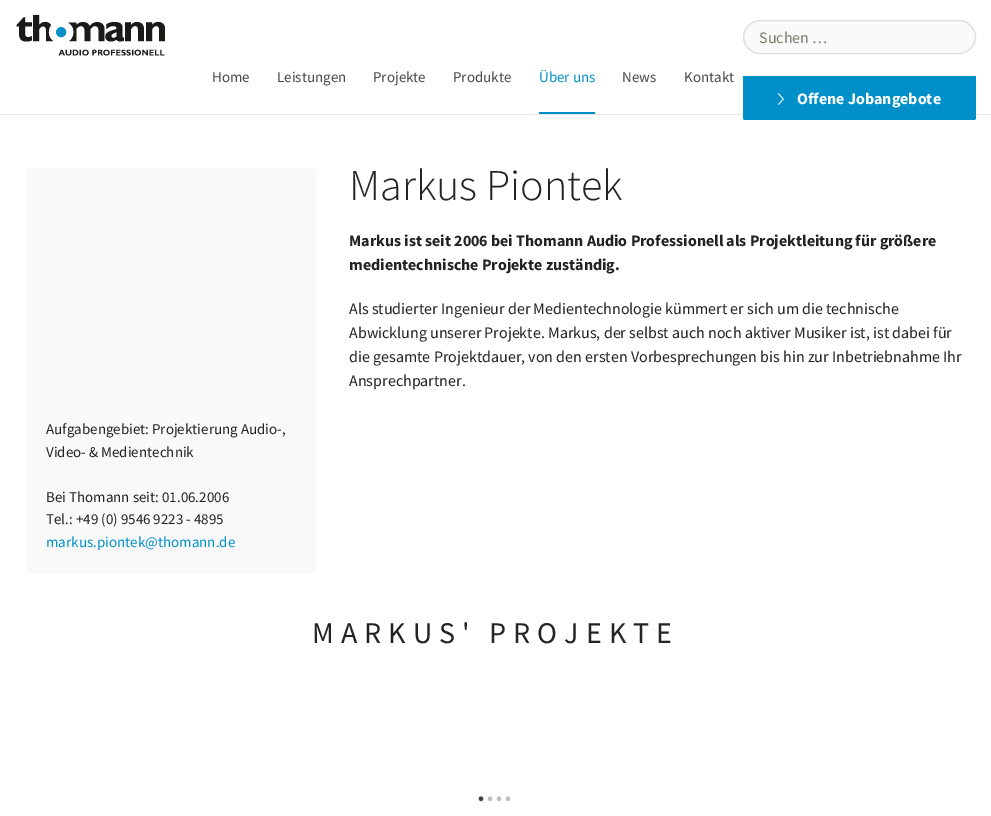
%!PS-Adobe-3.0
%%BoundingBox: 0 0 991 816
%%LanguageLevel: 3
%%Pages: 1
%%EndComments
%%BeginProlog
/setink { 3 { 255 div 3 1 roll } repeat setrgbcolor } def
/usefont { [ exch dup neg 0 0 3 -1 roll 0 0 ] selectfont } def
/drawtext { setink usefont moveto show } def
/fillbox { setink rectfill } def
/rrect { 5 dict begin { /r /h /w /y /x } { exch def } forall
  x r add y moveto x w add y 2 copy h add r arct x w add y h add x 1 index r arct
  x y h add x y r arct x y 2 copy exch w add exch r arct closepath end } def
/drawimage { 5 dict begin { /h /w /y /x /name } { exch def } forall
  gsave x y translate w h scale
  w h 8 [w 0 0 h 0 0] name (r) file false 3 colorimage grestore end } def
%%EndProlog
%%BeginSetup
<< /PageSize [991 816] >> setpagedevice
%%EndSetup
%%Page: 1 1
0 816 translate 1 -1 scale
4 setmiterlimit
0 0 991 816 255 255 255 fillbox
0 114 991 1 229 229 229 fillbox
(assets/img1.rgb) 16 15 149 41 drawimage
(Home) 212 82 /SourceSansPro-Regular 15 73 73 73 drawtext
(Leistungen) 277 82 /SourceSansPro-Regular 15 73 73 73 drawtext
(Projekte) 373 82 /SourceSansPro-Regular 15 73 73 73 drawtext
(Produkte) 453 82 /SourceSansPro-Regular 15 73 73 73 drawtext
539 112 56 2 0 144 201 fillbox
(Über uns) 539 82 /SourceSansPro-Regular 15 0 144 201 drawtext
(News) 622 82 /SourceSansPro-Regular 15 73 73 73 drawtext
(Kontakt) 684 82 /SourceSansPro-Regular 15 73 73 73 drawtext
250 250 250 setink
743.5 20.5 232 33 16.5 rrect gsave fill grestore
221 221 221 setink
stroke
(Suchen …) 759 43 /SourceSansPro-Regular 16 125 123 109 drawtext
0 144 201 setink
743 76 moveto 976 76 lineto 976 118 lineto 976 119 975 120 974 120 curveto 745 120 lineto 744 120 743 119 743 118 curveto closepath fill
(assets/img2.rgb) 777 93 7 12 drawimage
(Offene Jobangebote) 797 104 /SourceSansPro-Bold 16 255 255 255 drawtext
(Markus Piontek) 349 200 /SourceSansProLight-Light 44 35 35 35 drawtext
(Markus ist seit 2006 bei Thomann Audio Professionell als Projektleitung für größere) 349 246 /SourceSansPro-Bold 16 35 35 35 drawtext
(medientechnische Projekte zuständig.) 349 270 /SourceSansPro-Bold 16 35 35 35 drawtext
(Als studierter Ingenieur der Medientechnologie kümmert er sich um die technische) 349 314 /SourceSansPro-Regular 16 35 35 35 drawtext
(Abwicklung unserer Projekte. Markus, der selbst auch noch aktiver Musiker ist, ist dabei für) 349 338 /SourceSansPro-Regular 16 35 35 35 drawtext
(die gesamte Projektdauer, von den ersten Vorbesprechungen bis hin zur Inbetriebnahme Ihr) 349 362 /SourceSansPro-Regular 16 35 35 35 drawtext
(Ansprechpartner.) 349 386 /SourceSansPro-Regular 16 35 35 35 drawtext
249 249 249 setink
26 168 290 405 3 rrect fill
(Aufgabengebiet: Projektierung Audio-,) 46 434 /SourceSansPro-Regular 15 35 35 35 drawtext
(Video- & Medientechnik) 46 457 /SourceSansPro-Regular 15 35 35 35 drawtext
(Bei Thomann seit: 01.06.2006) 46 502 /SourceSansPro-Regular 15 35 35 35 drawtext
(Tel.: +49 \(0\) 9546 9223 - 4895) 46 524 /SourceSansPro-Regular 15 35 35 35 drawtext
(markus.piontek@thomann.de) 46 547 /SourceSansPro-Regular 15 0 144 201 drawtext
/SourceSansPro-Regular 30 usefont
35 35 35 setink
312 643 moveto 7 0 (MARKUS' PROJEKTE) ashow
(•) 478 804 /SourceSansPro-Regular 20 64 64 64 drawtext
(•) 487 804 /SourceSansPro-Regular 20 191 191 191 drawtext
(•) 496 804 /SourceSansPro-Regular 20 191 191 191 drawtext
(•) 505 804 /SourceSansPro-Regular 20 191 191 191 drawtext
showpage
%%EOF
